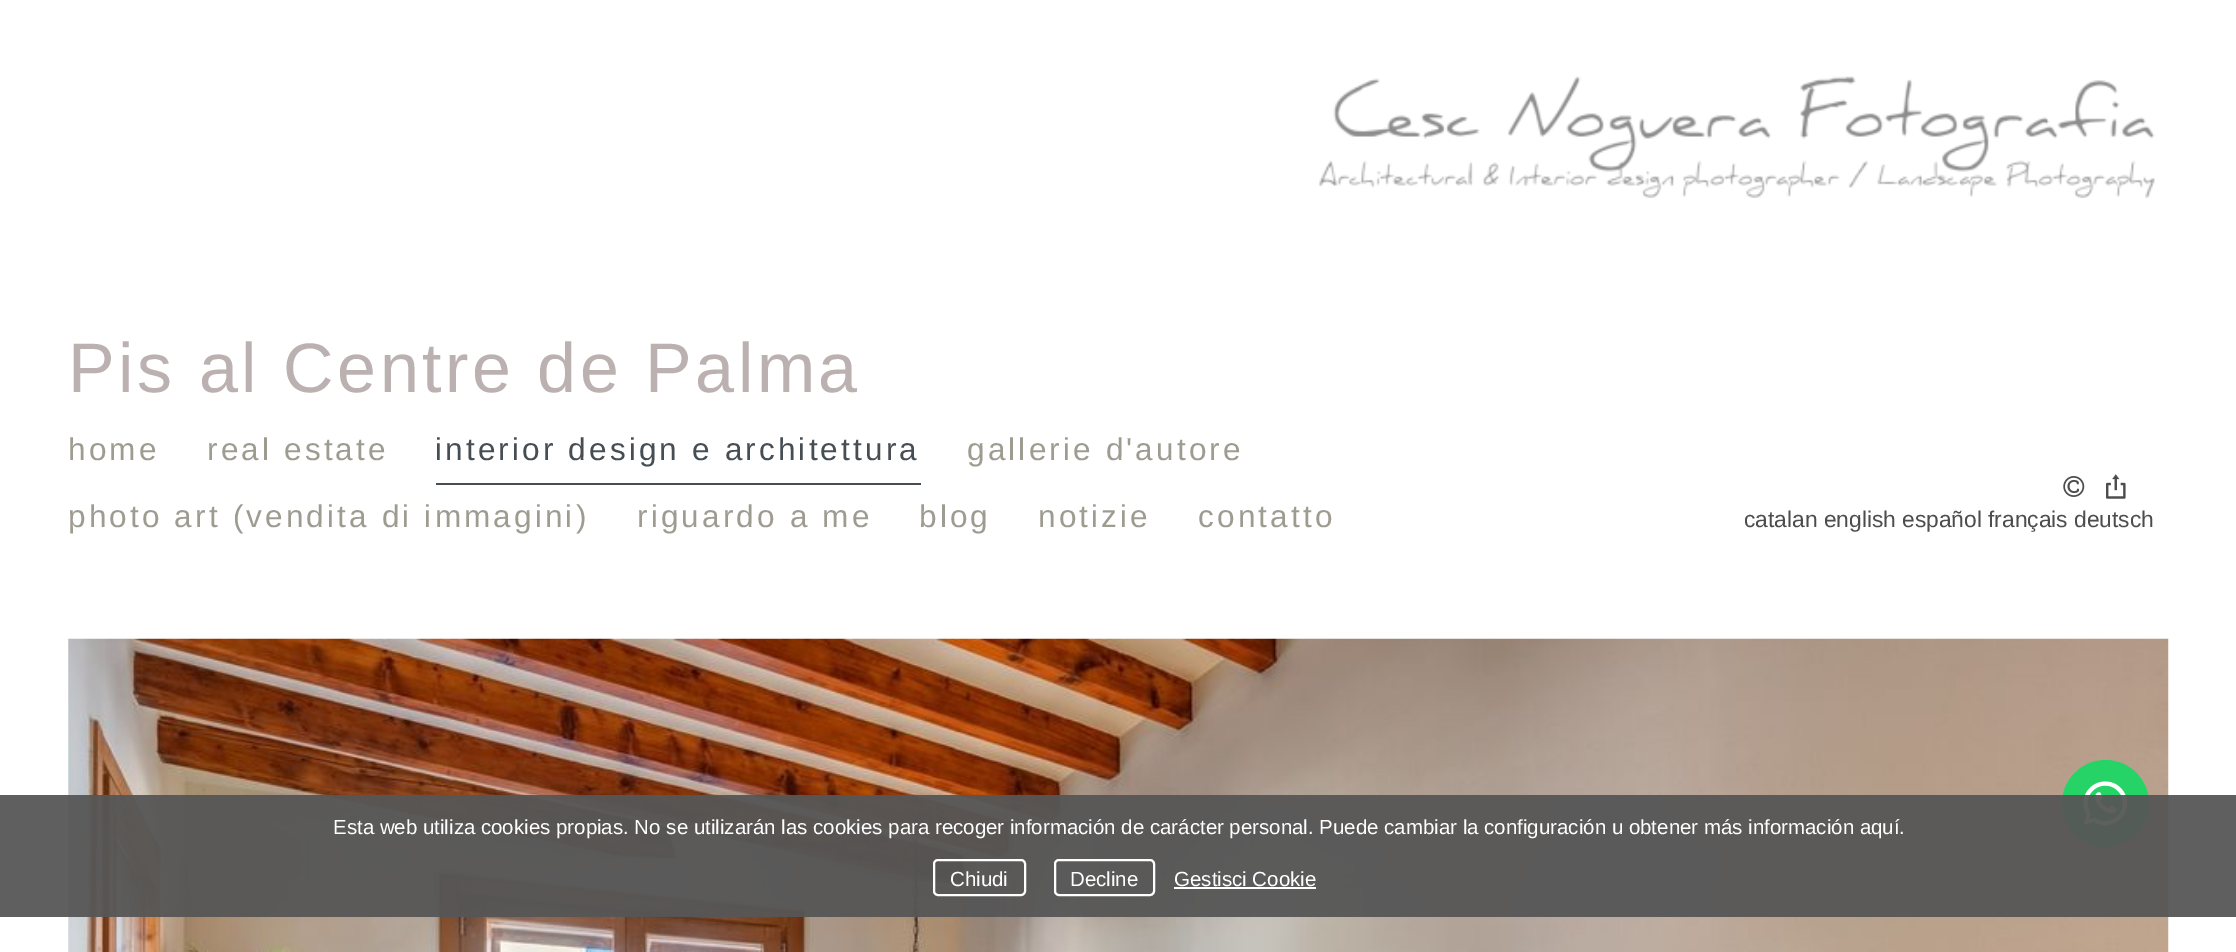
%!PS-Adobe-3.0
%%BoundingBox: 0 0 2236 952
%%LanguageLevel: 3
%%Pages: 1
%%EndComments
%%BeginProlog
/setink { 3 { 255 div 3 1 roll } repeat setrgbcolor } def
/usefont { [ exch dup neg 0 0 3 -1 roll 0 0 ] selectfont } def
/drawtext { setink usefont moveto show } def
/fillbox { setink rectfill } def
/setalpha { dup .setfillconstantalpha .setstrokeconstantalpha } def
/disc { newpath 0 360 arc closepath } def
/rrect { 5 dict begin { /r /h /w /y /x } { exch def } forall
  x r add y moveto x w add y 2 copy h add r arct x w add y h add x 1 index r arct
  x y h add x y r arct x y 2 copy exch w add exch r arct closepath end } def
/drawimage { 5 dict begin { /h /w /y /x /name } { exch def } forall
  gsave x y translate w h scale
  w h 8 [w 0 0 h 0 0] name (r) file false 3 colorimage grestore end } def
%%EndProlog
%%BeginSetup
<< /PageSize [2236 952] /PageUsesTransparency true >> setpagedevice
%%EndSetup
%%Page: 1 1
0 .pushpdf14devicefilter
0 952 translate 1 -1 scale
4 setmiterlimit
0 0 2236 952 255 255 255 fillbox
(assets/img1.rgb) 1319 76 836 122 drawimage
/LiberationSans-Regular 70 usefont
188 177 177 setink
68 392 moveto 3.5 0 (Pis al Centre de Palma) ashow
/LiberationSans-Regular 31.5 usefont
158 156 145 setink
68 460 moveto 3.15 0 (home) ashow
207 460 moveto 3.15 0 (real estate) ashow
436 483 485 2 70 78 84 fillbox
435 460 moveto 3.15 0 (interior design e architettura) ashow
158 156 145 setink
967 460 moveto 3.15 0 (gallerie d'autore) ashow
68 527 moveto 3.15 0 (photo art \(vendita di immagini\)) ashow
637 527 moveto 3.15 0 (riguardo a me) ashow
919 527 moveto 3.15 0 (blog) ashow
1038 527 moveto 3.15 0 (notizie) ashow
1198 527 moveto 3.15 0 (contatto) ashow
(assets/img2.rgb) 2063 476 22 21 drawimage
(assets/img3.rgb) 2106 474 20 25 drawimage
(catalan english español français deutsch) 1744 527 /LiberationSans-Regular 22.75 77 77 77 drawtext
(assets/img4.rgb) 68 638 2101 314 drawimage
37 211 102 setink
2105.5 803.5 43.5 disc fill
(assets/img5.rgb) 2083 781 45 45 drawimage
0.95 setalpha
0 795 2236 122 86 86 86 fillbox
1 setalpha
(Esta web utiliza cookies propias. No se utilizarán las cookies para recoger información de carácter personal. Puede cambiar la configuración u obtener más información aquí.) 333 834 /LiberationSans-Regular 20.47 255 255 255 drawtext
2 setlinewidth
934 860 91 35 4 rrect stroke
(Chiudi) 950 886 /LiberationSans-Regular 20.47 255 255 255 drawtext
1055 860 99 35 4 rrect stroke
(Decline) 1070 886 /LiberationSans-Regular 20.47 255 255 255 drawtext
(Gestisci Cookie) 1174 886 /LiberationSans-Regular 20.47 255 255 255 drawtext
1174 887 142 2 255 255 255 fillbox
.poppdf14devicefilter showpage
%%EOF
